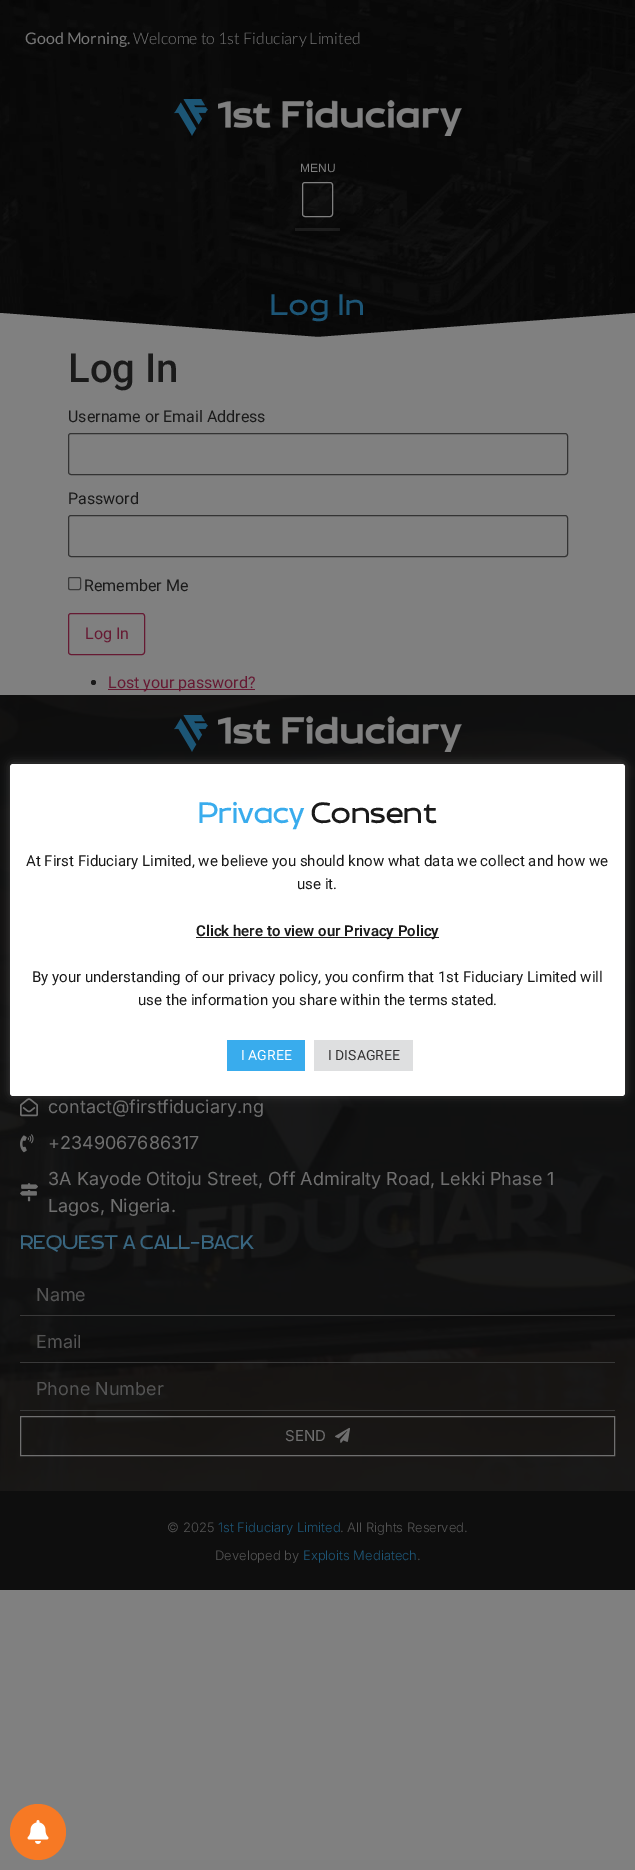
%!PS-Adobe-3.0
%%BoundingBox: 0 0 635 1870
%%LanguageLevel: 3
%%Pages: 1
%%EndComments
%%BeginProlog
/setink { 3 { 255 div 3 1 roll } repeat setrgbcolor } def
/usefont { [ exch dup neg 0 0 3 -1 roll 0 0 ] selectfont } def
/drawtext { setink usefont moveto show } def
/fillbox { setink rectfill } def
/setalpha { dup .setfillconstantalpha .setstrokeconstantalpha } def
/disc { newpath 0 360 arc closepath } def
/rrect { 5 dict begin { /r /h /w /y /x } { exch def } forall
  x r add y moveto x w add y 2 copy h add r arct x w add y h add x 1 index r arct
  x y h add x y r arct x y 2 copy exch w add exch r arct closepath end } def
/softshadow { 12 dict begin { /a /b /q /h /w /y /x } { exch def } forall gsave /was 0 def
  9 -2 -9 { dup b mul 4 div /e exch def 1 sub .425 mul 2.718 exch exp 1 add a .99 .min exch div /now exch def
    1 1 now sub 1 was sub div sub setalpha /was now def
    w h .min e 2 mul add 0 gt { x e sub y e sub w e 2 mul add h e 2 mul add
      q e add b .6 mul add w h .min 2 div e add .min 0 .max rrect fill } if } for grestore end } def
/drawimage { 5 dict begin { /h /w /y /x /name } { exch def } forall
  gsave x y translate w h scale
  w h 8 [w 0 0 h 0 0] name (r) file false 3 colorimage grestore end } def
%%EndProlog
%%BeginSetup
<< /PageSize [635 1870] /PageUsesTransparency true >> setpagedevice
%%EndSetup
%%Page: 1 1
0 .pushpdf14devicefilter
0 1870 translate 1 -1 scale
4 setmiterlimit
0 0 635 1870 128 128 128 fillbox
(assets/img1.rgb) 0 0 635 337 drawimage
(Good Morning.) 25 44 /Lato-Regular 16 119 119 119 drawtext
(Welcome to 1st Fiduciary Limited) 133 44 /Lato-Light 16 119 119 119 drawtext
(assets/img2.rgb) 174 99 288 37 drawimage
(MENU) 300 172 /LiberationSans-Regular 12 128 128 128 drawtext
302.5 182.5 30 34 2.5 rrect stroke
0.17 setalpha
295 228 45 3 128 128 128 fillbox
/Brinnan-Regular 30 usefont
1 setalpha
29 86 119 setink
270 315 moveto 1 0 (Log In) ashow
128 128 128 setink
318 337 moveto 0 313 lineto 0 338 lineto 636 338 lineto 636 313 lineto closepath fill
(Log In) 68 382 /Roboto-Medium 40 26 26 26 drawtext
(Username or Email Address) 68 422 /Roboto-Regular 16 26 26 26 drawtext
51 51 51 setink
68.5 433.5 499 41 2.5 rrect stroke
(Password) 68 504 /Roboto-Regular 16 26 26 26 drawtext
51 51 51 setink
68.5 515.5 499 41 2.5 rrect stroke
59 59 59 setink
68.5 577.5 12 12 1.5 rrect stroke
(Remember Me) 84 591 /Roboto-Regular 16 26 26 26 drawtext
102 26 51 setink
68.5 613.5 76 41 2.5 rrect stroke
(Log In) 85 639 /Roboto-Regular 16 102 26 51 drawtext
26 26 26 setink
93.5 682.5 2.5 disc fill
108 689 147 1 102 26 51 fillbox
(Lost your password?) 108 688 /Roboto-Regular 16 102 26 51 drawtext
(assets/img3.rgb) 0 695 635 796 drawimage
(assets/img4.rgb) 174 715 288 37 drawimage
(assets/img5.rgb) 20 1098 18 19 drawimage
172 171 171 setink
10 763 615 332 3 5 0.3 softshadow
255 255 255 setink
10 764 615 332 3 rrect fill
(Privacy) 198 823 /Brinnan-Regular 30 57 172 237 drawtext
(Consent) 311 823 /Brinnan-Regular 30 26 26 26 drawtext
(At First Fiduciary Limited, we believe you should know what data we collect and how we) 26 866 /Roboto-Regular 15 26 26 26 drawtext
(use it.) 297 889 /Roboto-Regular 15 26 26 26 drawtext
196 937 243 1 28 28 28 fillbox
(Click here to view our Privacy Policy) 196 936 /Roboto-SemiBold 15 26 26 26 drawtext
(By your understanding of our privacy policy, you confirm that 1st Fiduciary Limited will) 32 982 /Roboto-Regular 15 26 26 26 drawtext
(use the information you share within the terms stated.) 138 1005 /Roboto-Regular 15 26 26 26 drawtext
227 1040 78 31 57 172 237 fillbox
(I AGREE) 241 1060 /Roboto-Regular 14 255 255 255 drawtext
314 1040 99 31 222 223 224 fillbox
(I DISAGREE) 328 1060 /Roboto-Regular 14 51 51 51 drawtext
(contact@firstfiduciary.ng) 48 1113 /Inter-Regular 18 111 111 111 drawtext
(assets/img6.rgb) 20 1134 14 19 drawimage
(+2349067686317) 48 1149 /Inter-Regular 18 111 111 111 drawtext
(assets/img7.rgb) 20 1183 18 19 drawimage
(3A Kayode Otitoju Street, Off Admiralty Road, Lekki Phase 1) 48 1185 /Inter-Regular 18 111 111 111 drawtext
(Lagos, Nigeria.) 48 1212 /Inter-Regular 18 111 111 111 drawtext
(REQUEST A CALL-BACK) 20 1249 /Brinnan-Regular 20 57 102 128 drawtext
20 1315 595 1 57 57 57 fillbox
(Name) 36 1301 /Inter-Regular 18 84 84 84 drawtext
20 1362 595 1 57 57 57 fillbox
(Email) 36 1348 /Inter-Regular 18 84 84 84 drawtext
20 1410 595 1 57 57 57 fillbox
(Phone Number) 36 1395 /Inter-Regular 18 84 84 84 drawtext
111 111 111 setink
20.5 1416.5 594 39 rectstroke
(SEND) 285 1441 /Inter-Regular 15 111 111 111 drawtext
(assets/img8.rgb) 335 1427 15 16 drawimage
0 1491 635 99 14 14 14 fillbox
(© 2025) 167 1532 /Inter-Light 13 84 84 84 drawtext
(1st Fiduciary Limited) 218 1532 /Inter-Light 13 29 86 119 drawtext
(. All Rights Reserved.) 340 1532 /Inter-Light 13 84 84 84 drawtext
(Developed by) 215 1560 /Inter-Light 13 84 84 84 drawtext
(Exploits Mediatech) 303 1560 /Inter-Light 13 29 86 119 drawtext
(.) 417 1560 /Inter-Light 13 84 84 84 drawtext
247 121 36 setink
38 1832 28 disc fill
(assets/img9.rgb) 27 1820 22 24 drawimage
.poppdf14devicefilter showpage
%%EOF
